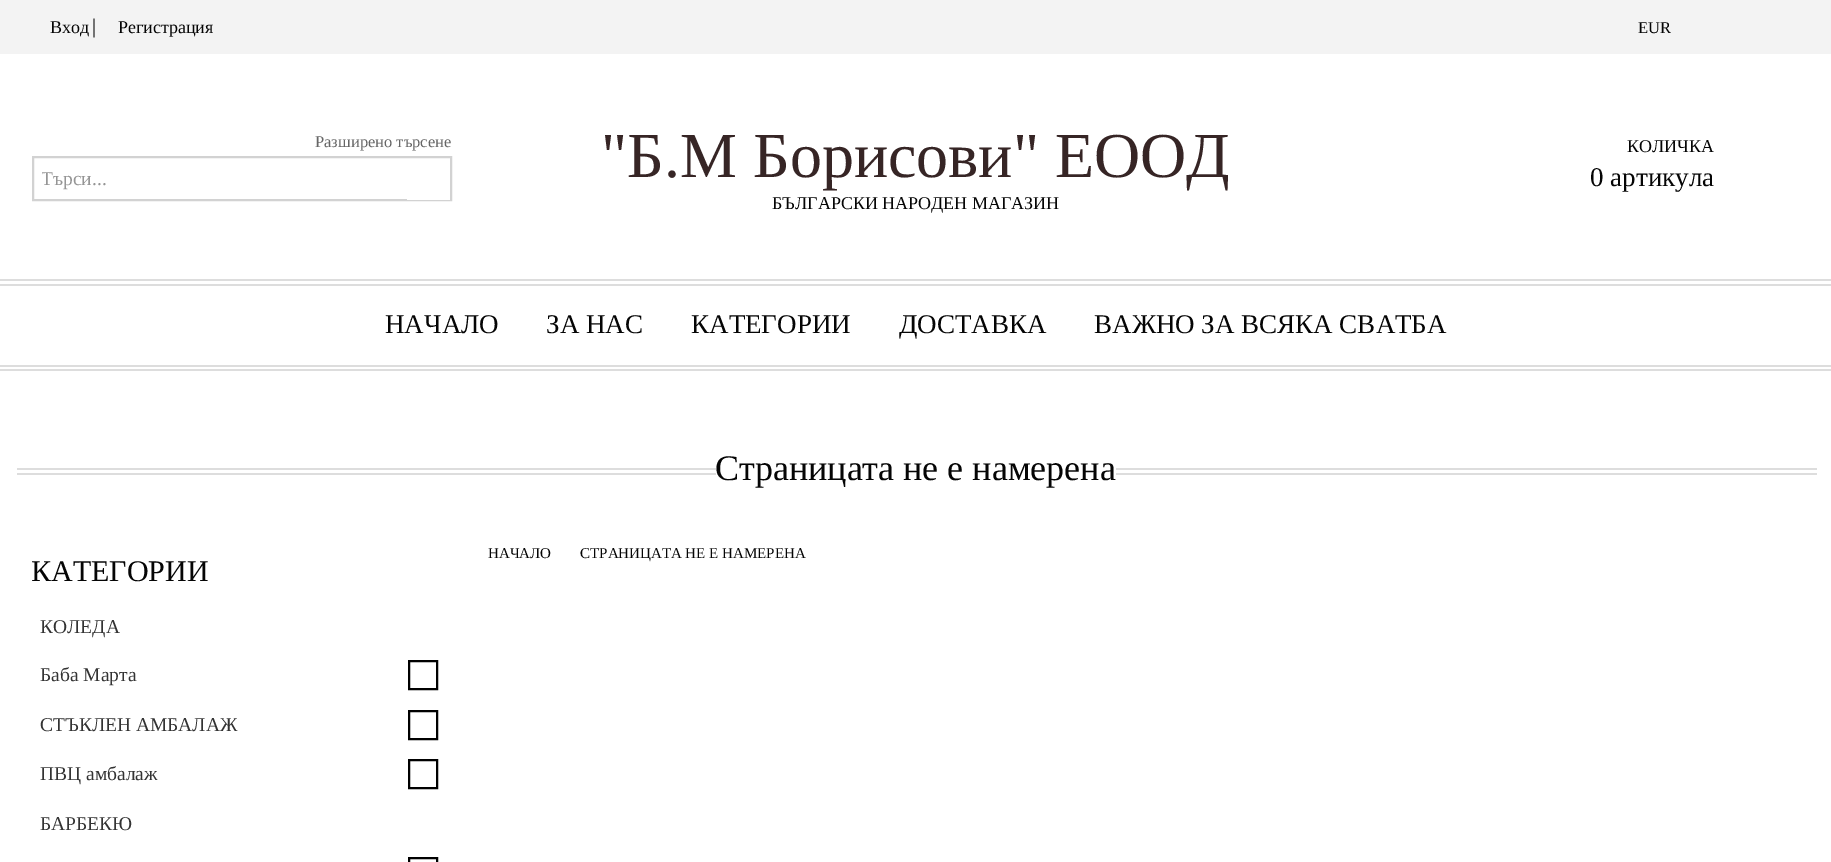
%!PS-Adobe-3.0
%%BoundingBox: 0 0 1831 862
%%LanguageLevel: 3
%%Pages: 1
%%EndComments
%%BeginProlog
/setink { 3 { 255 div 3 1 roll } repeat setrgbcolor } def
/usefont { [ exch dup neg 0 0 3 -1 roll 0 0 ] selectfont } def
/drawtext { setink usefont moveto show } def
/fillbox { setink rectfill } def
%%EndProlog
%%BeginSetup
<< /PageSize [1831 862] >> setpagedevice
%%EndSetup
%%Page: 1 1
0 862 translate 1 -1 scale
4 setmiterlimit
0 0 1831 862 255 255 255 fillbox
0 0 1831 54 243 243 243 fillbox
(Вход) 50 33 /LiberationSerif-Regular 18 5 5 5 drawtext
(|) 92 33 /LiberationSerif-Regular 21 5 5 5 drawtext
(Регистрация) 118 33 /LiberationSerif-Regular 18 5 5 5 drawtext
(EUR) 1638 33 /LiberationSerif-Regular 16.5 5 5 5 drawtext
(Разширено търсене) 315 147 /LiberationSerif-Regular 16.5 102 102 102 drawtext
210 210 210 setink
2 setlinewidth
33 157 418 43 rectstroke
gsave
42 167 399 24 rectclip
(Търси...) 41 185 /LiberationSerif-Regular 19.5 149 149 149 drawtext
grestore
407 199 43 1 255 255 255 fillbox
("Б.М Борисови" ЕООД) 601 177 /LiberationSerif-Regular 64 54 37 37 drawtext
(БЪЛГАРСКИ НАРОДЕН МАГАЗИН) 772 209 /LiberationSerif-Regular 18 5 5 5 drawtext
(КОЛИЧКА) 1627 152 /LiberationSerif-Regular 18 5 5 5 drawtext
(0 артикула) 1590 186 /LiberationSerif-Regular 27 5 5 5 drawtext
0 279 1831 2 221 221 221 fillbox
0 369 1831 2 221 221 221 fillbox
0 284 1831 2 221 221 221 fillbox
(НАЧАЛО) 385 333 /LiberationSerif-Regular 27 5 5 5 drawtext
(ЗА НАС) 546 333 /LiberationSerif-Regular 27 5 5 5 drawtext
(КАТЕГОРИИ) 691 333 /LiberationSerif-Regular 27 5 5 5 drawtext
(ДОСТАВКА) 899 333 /LiberationSerif-Regular 27 5 5 5 drawtext
(ВАЖНО ЗА ВСЯКА СВАТБА) 1094 333 /LiberationSerif-Regular 27 5 5 5 drawtext
0 365 1831 2 221 221 221 fillbox
17 468 1800 2 221 221 221 fillbox
17 473 1800 2 221 221 221 fillbox
716 468 400 7 255 255 255 fillbox
(Страницата не е намерена) 715 480 /LiberationSerif-Regular 36 5 5 5 drawtext
(НАЧАЛО) 488 558 /LiberationSerif-Regular 15 5 5 5 drawtext
(СТРАНИЦАТА НЕ Е НАМЕРЕНА) 580 558 /LiberationSerif-Regular 15 5 5 5 drawtext
gsave
32 554 412 34 rectclip
(КАТЕГОРИИ) 31 581 /LiberationSerif-Regular 30 5 5 5 drawtext
grestore
(КОЛЕДА) 40 633 /LiberationSerif-Regular 19.5 51 51 51 drawtext
(Баба Марта) 40 681 /LiberationSerif-Regular 19.5 51 51 51 drawtext
0 0 0 setink
409 661 28 28 rectstroke
(СТЪКЛЕН АМБАЛАЖ) 40 731 /LiberationSerif-Regular 19.5 51 51 51 drawtext
0 0 0 setink
409 711 28 28 rectstroke
(ПВЦ амбалаж) 40 780 /LiberationSerif-Regular 19.5 51 51 51 drawtext
0 0 0 setink
409 760 28 28 rectstroke
(БАРБЕКЮ) 40 830 /LiberationSerif-Regular 19.5 51 51 51 drawtext
0 0 0 setink
409 858 28 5 rectstroke
showpage
%%EOF
